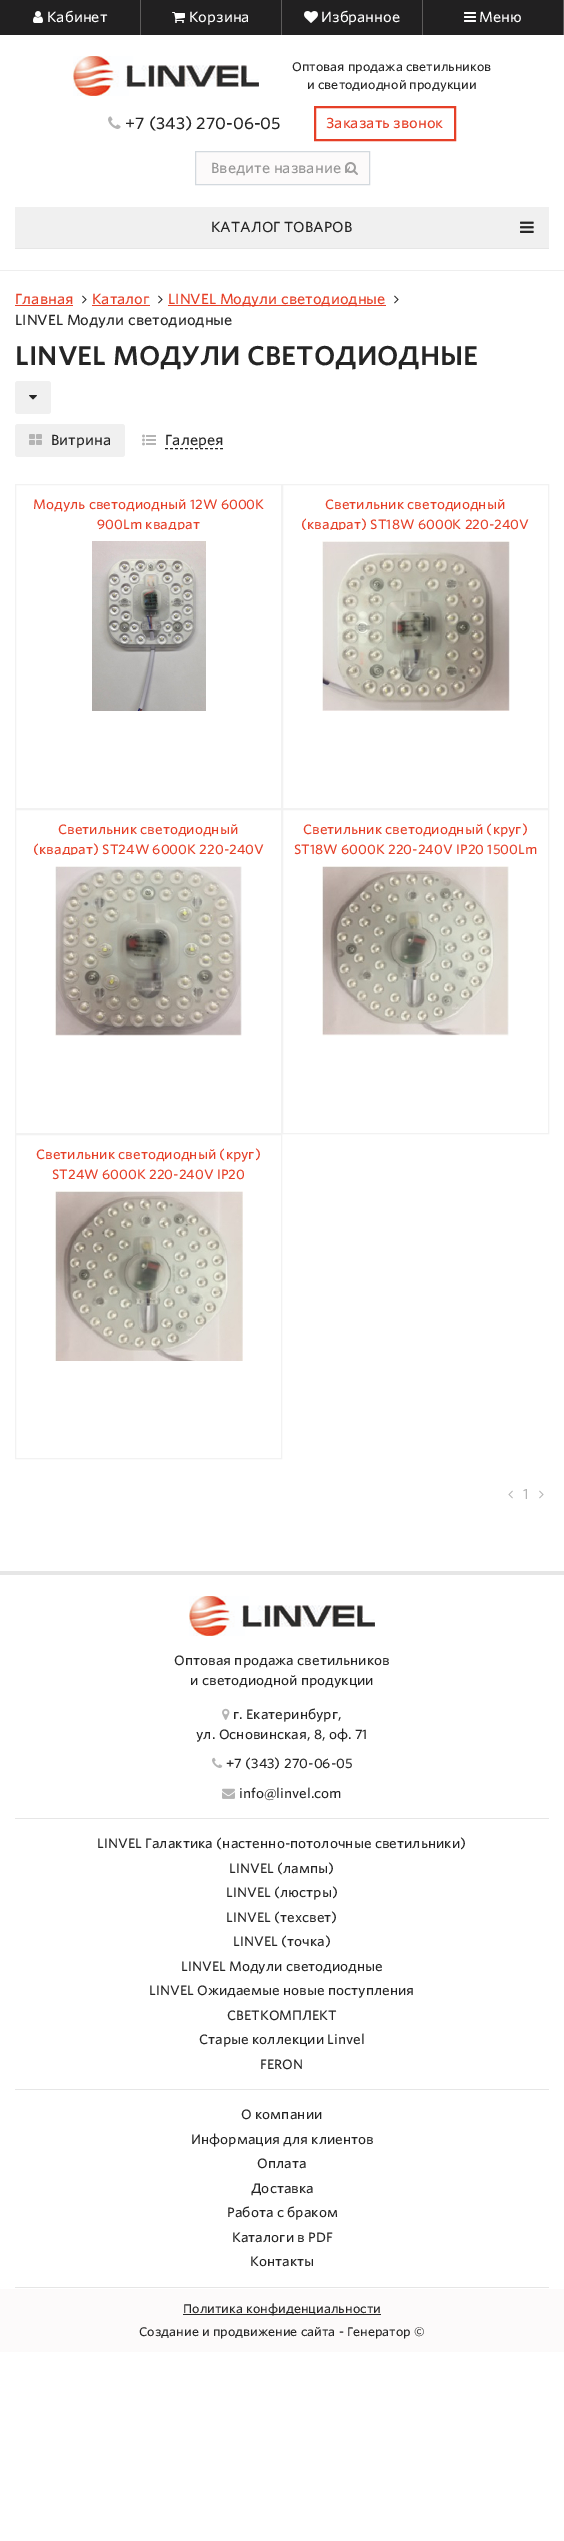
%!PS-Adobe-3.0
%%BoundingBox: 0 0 564 2541
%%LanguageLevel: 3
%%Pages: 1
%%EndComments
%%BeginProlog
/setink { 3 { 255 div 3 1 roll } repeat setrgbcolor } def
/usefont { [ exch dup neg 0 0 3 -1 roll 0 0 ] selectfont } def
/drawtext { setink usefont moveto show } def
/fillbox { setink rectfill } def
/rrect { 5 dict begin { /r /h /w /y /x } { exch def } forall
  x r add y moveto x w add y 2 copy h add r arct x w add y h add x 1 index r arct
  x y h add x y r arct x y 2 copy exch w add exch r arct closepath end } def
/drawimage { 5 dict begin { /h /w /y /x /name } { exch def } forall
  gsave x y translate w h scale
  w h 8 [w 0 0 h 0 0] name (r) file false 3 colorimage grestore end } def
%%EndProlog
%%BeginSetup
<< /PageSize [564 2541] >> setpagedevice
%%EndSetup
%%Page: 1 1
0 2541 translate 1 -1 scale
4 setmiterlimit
0 0 564 2541 255 255 255 fillbox
0 0 140 35 33 32 33 fillbox
140 0 1 35 93 91 91 fillbox
(assets/img1.rgb) 33 11 10 12 drawimage
(Кабинет) 47 22 /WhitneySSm-Medium 14 255 255 255 drawtext
141 0 140 35 33 32 33 fillbox
281 0 1 35 93 91 91 fillbox
(assets/img2.rgb) 172 12 13 11 drawimage
(Корзина) 189 22 /WhitneySSm-Medium 14 255 255 255 drawtext
282 0 140 35 33 32 33 fillbox
422 0 1 35 93 91 91 fillbox
(assets/img3.rgb) 304 11 14 12 drawimage
(Избранное) 321 22 /WhitneySSm-Medium 14 255 255 255 drawtext
423 0 140 35 33 32 33 fillbox
563 0 1 35 93 91 91 fillbox
(assets/img4.rgb) 464 12 12 10 drawimage
(Меню) 479 22 /WhitneySSm-Medium 14 255 255 255 drawtext
0 270 564 1 238 238 238 fillbox
(assets/img5.rgb) 73 56 186 40 drawimage
(Оптовая продажа светильников) 292 71 /WhitneySSm-Medium 12 37 37 37 drawtext
(и светодиодной продукции) 307 89 /WhitneySSm-Medium 12 37 37 37 drawtext
(assets/img6.rgb) 108 116 13 13 drawimage
(+7 \(343\) 270-06-05) 125 129 /WhitneySSm-Medium 16 37 37 37 drawtext
230 63 39 setink
2 setlinewidth
315 107 140 33 rectstroke
(Заказать звонок) 326 128 /WhitneySSm-Medium 14 230 63 39 drawtext
252 250 250 setink
195.5 151.5 moveto 369.5 151.5 lineto 369.5 184.5 lineto 195.5 184.5 lineto closepath gsave fill grestore
211 217 222 setink
1 setlinewidth
stroke
(Введите название) 211 173 /WhitneySSm-Medium 14 149 149 149 drawtext
(assets/img7.rgb) 345 162 13 13 drawimage
15 207 534 41 240 240 240 fillbox
15 248 534 1 230 230 230 fillbox
(КАТАЛОГ ТОВАРОВ) 211 232 /WhitneySSm-Medium 14 37 37 37 drawtext
(assets/img8.rgb) 520 221 14 12 drawimage
(Главная) 15 304 /WhitneySSm-Medium 14 230 63 39 drawtext
15 305 58 1 230 63 39 fillbox
(assets/img9.rgb) 82 295 5 9 drawimage
(Каталог) 92 304 /WhitneySSm-Medium 14 230 63 39 drawtext
92 305 58 1 230 63 39 fillbox
(assets/img9.rgb) 158 295 5 9 drawimage
168 305 218 1 230 63 39 fillbox
(LINVEL Модули светодиодные) 168 304 /WhitneySSm-Medium 14 230 63 39 drawtext
(assets/img9.rgb) 394 295 5 9 drawimage
(LINVEL Модули светодиодные) 15 325 /WhitneySSm-Medium 14 37 37 37 drawtext
(LINVEL МОДУЛИ СВЕТОДИОДНЫЕ) 15 365 /WhitneySSm-SemiBold 26 37 37 37 drawtext
240 240 240 setink
15 381 36 33 3 rrect fill
(assets/img10.rgb) 29 395 8 5 drawimage
15 424 110 33 3 rrect fill
(assets/img11.rgb) 29 434 13 11 drawimage
(Витрина) 51 445 /WhitneySSm-Medium 14 37 37 37 drawtext
(assets/img12.rgb) 142 434 14 12 drawimage
(Галерея) 165 445 /WhitneySSm-Medium 14 37 37 37 drawtext
[3 2] 0 setdash
165 448.5 moveto 223 448.5 lineto stroke
242 242 242 setink
[] 0 setdash
15.5 484.5 266 324 rectstroke
(Модуль светодиодный 12W 6000K) 33 509 /WhitneySSm-Medium 13 230 63 39 drawtext
gsave
26 495 245 35 rectclip
(900Lm квадрат) 97 529 /WhitneySSm-Medium 13 230 63 39 drawtext
grestore
(assets/img13.rgb) 92 541 114 170 drawimage
242 242 242 setink
282.5 484.5 266 324 rectstroke
(Светильник светодиодный) 325 509 /WhitneySSm-Medium 13 230 63 39 drawtext
gsave
293 495 245 35 rectclip
(\(квадрат\) ST18W 6000К 220-240V) 301 529 /WhitneySSm-Medium 13 230 63 39 drawtext
grestore
(assets/img14.rgb) 322 541 188 170 drawimage
242 242 242 setink
15.5 809.5 266 324 rectstroke
(Светильник светодиодный) 58 834 /WhitneySSm-Medium 13 230 63 39 drawtext
gsave
26 820 245 35 rectclip
(\(квадрат\) ST24W 6000К 220-240V) 33 854 /WhitneySSm-Medium 13 230 63 39 drawtext
grestore
(assets/img15.rgb) 55 866 187 170 drawimage
242 242 242 setink
282.5 809.5 266 324 rectstroke
(Светильник светодиодный \(круг\)) 303 834 /WhitneySSm-Medium 13 230 63 39 drawtext
(ST18W 6000К 220-240V IP20 1500Lm) 294 854 /WhitneySSm-Medium 13 230 63 39 drawtext
(assets/img16.rgb) 322 866 187 170 drawimage
242 242 242 setink
15.5 1134.5 266 324 rectstroke
(Светильник светодиодный \(круг\)) 36 1159 /WhitneySSm-Medium 13 230 63 39 drawtext
(ST24W 6000К 220-240V IP20) 52 1179 /WhitneySSm-Medium 13 230 63 39 drawtext
(assets/img17.rgb) 55 1191 188 170 drawimage
(assets/img18.rgb) 508 1490 5 9 drawimage
(1) 523 1499 /WhitneySSm-Medium 14 180 180 180 drawtext
(assets/img19.rgb) 539 1490 5 9 drawimage
0 1571 564 4 230 230 230 fillbox
15 1818 534 1 230 230 230 fillbox
(assets/img5.rgb) 189 1596 186 40 drawimage
(Оптовая продажа светильников) 174 1665 /WhitneySSm-Medium 13 37 37 37 drawtext
(и светодиодной продукции) 190 1685 /WhitneySSm-Medium 13 37 37 37 drawtext
(assets/img20.rgb) 222 1708 8 12 drawimage
(г. Екатеринбург,) 233 1719 /WhitneySSm-Medium 13 37 37 37 drawtext
(ул. Основинская, 8, оф. 71) 196 1739 /WhitneySSm-Medium 13 37 37 37 drawtext
(assets/img21.rgb) 212 1757 11 11 drawimage
(+7 \(343\) 270-06-05) 226 1768 /WhitneySSm-Medium 13 37 37 37 drawtext
(assets/img22.rgb) 222 1788 13 11 drawimage
(info@linvel.com) 239 1798 /WhitneySSm-Medium 13 37 37 37 drawtext
15 2089 534 1 230 230 230 fillbox
(LINVEL Галактика \(настенно-потолочные светильники\)) 97 1848 /WhitneySSm-Medium 13 37 37 37 drawtext
(LINVEL \(лампы\)) 229 1873 /WhitneySSm-Medium 13 37 37 37 drawtext
(LINVEL \(люстры\)) 226 1897 /WhitneySSm-Medium 13 37 37 37 drawtext
(LINVEL \(техсвет\)) 226 1922 /WhitneySSm-Medium 13 37 37 37 drawtext
(LINVEL \(точка\)) 233 1946 /WhitneySSm-Medium 13 37 37 37 drawtext
(LINVEL Модули светодиодные) 181 1971 /WhitneySSm-Medium 13 37 37 37 drawtext
(LINVEL Ожидаемые новые поступления) 149 1995 /WhitneySSm-Medium 13 37 37 37 drawtext
(СВЕТКОМПЛЕКТ) 227 2020 /WhitneySSm-Medium 13 37 37 37 drawtext
(Старые коллекции Linvel) 199 2044 /WhitneySSm-Medium 13 37 37 37 drawtext
(FERON) 260 2069 /WhitneySSm-Medium 13 37 37 37 drawtext
15 2287 534 1 230 230 230 fillbox
(О компании) 241 2119 /WhitneySSm-Medium 13 37 37 37 drawtext
(Информация для клиентов) 191 2144 /WhitneySSm-Medium 13 37 37 37 drawtext
(Оплата) 257 2168 /WhitneySSm-Medium 13 37 37 37 drawtext
(Доставка) 251 2193 /WhitneySSm-Medium 13 37 37 37 drawtext
(Работа с браком) 227 2217 /WhitneySSm-Medium 13 37 37 37 drawtext
(Каталоги в PDF) 232 2242 /WhitneySSm-Medium 13 37 37 37 drawtext
(Контакты) 250 2266 /WhitneySSm-Medium 13 37 37 37 drawtext
0 2289 564 63 252 250 250 fillbox
183 2314 198 1 37 37 37 fillbox
(Политика конфиденциальности) 183 2313 /WhitneySSm-Medium 12 37 37 37 drawtext
(Создание и продвижение сайта - Генератор ©) 139 2336 /WhitneySSm-Medium 12 37 37 37 drawtext
showpage
%%EOF
